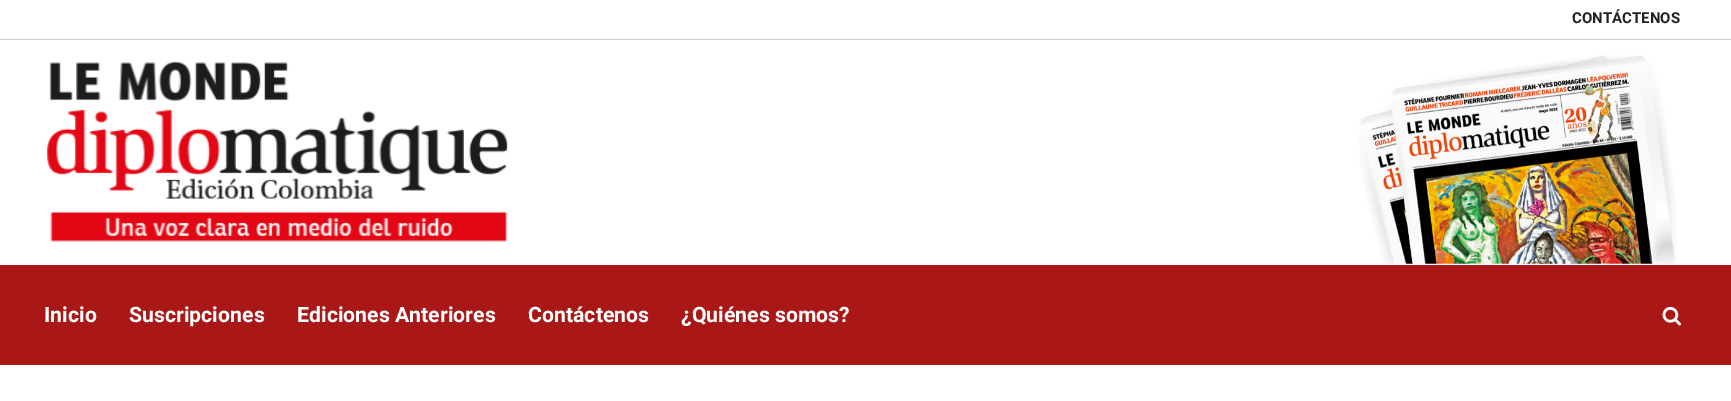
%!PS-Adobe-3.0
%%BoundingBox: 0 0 1731 401
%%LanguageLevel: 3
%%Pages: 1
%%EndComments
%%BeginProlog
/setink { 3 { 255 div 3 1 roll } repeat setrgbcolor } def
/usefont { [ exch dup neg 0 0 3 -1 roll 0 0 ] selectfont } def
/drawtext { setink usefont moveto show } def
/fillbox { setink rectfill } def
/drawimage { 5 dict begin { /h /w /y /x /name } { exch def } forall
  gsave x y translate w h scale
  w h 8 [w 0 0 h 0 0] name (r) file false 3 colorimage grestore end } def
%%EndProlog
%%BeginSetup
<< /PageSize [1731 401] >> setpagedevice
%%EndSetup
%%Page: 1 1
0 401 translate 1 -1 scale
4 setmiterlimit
0 0 1731 401 255 255 255 fillbox
0 39 1731 1 206 206 206 fillbox
(CONTÁCTENOS) 1572 23 /Heebo-Bold 15 34 34 34 drawtext
(assets/img1.rgb) 47 61 461 181 drawimage
(assets/img2.rgb) 1359 55 318 209 drawimage
0 265 1731 100 169 23 23 fillbox
(Inicio) 44 322 /Heebo-Bold 21.25 255 255 255 drawtext
(Suscripciones) 129 322 /Heebo-Bold 21.25 255 255 255 drawtext
(Ediciones Anteriores) 297 322 /Heebo-Bold 21.25 255 255 255 drawtext
(Contáctenos) 528 322 /Heebo-Bold 21.25 255 255 255 drawtext
(¿Quiénes somos?) 681 322 /Heebo-Bold 21.25 255 255 255 drawtext
(assets/img3.rgb) 1662 306 20 20 drawimage
showpage
%%EOF
